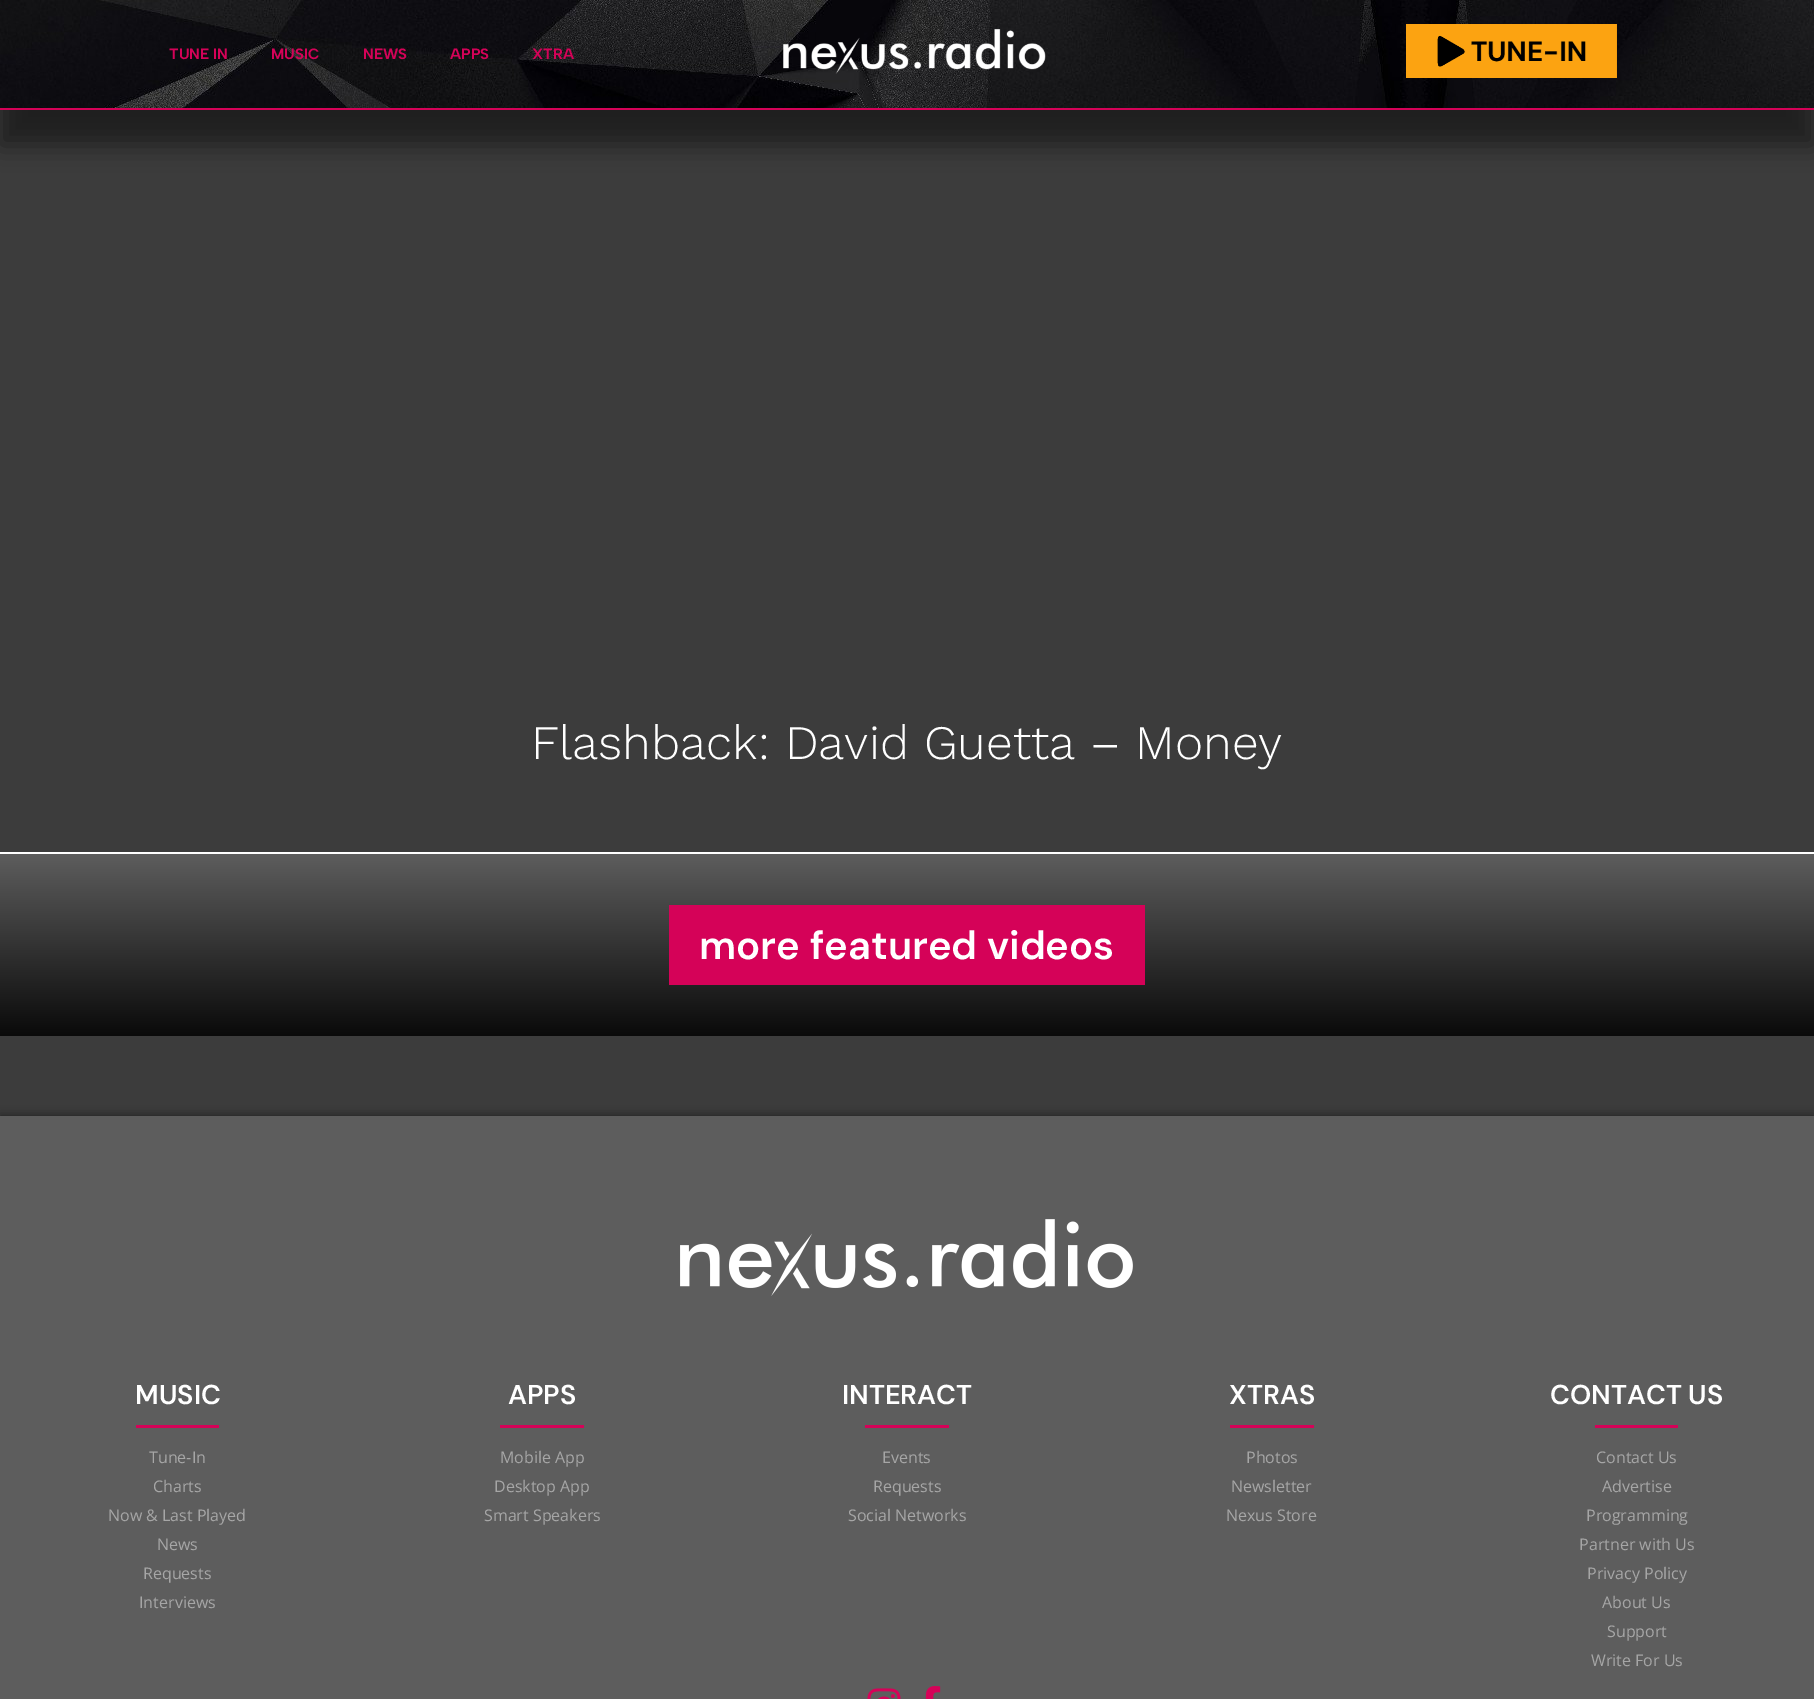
%!PS-Adobe-3.0
%%BoundingBox: 0 0 1814 1699
%%LanguageLevel: 3
%%Pages: 1
%%EndComments
%%BeginProlog
/setink { 3 { 255 div 3 1 roll } repeat setrgbcolor } def
/usefont { [ exch dup neg 0 0 3 -1 roll 0 0 ] selectfont } def
/drawtext { setink usefont moveto show } def
/fillbox { setink rectfill } def
/setalpha { dup .setfillconstantalpha .setstrokeconstantalpha } def
/rrect { 5 dict begin { /r /h /w /y /x } { exch def } forall
  x r add y moveto x w add y 2 copy h add r arct x w add y h add x 1 index r arct
  x y h add x y r arct x y 2 copy exch w add exch r arct closepath end } def
/softshadow { 12 dict begin { /a /b /q /h /w /y /x } { exch def } forall gsave /was 0 def
  9 -2 -9 { dup b mul 4 div /e exch def 1 sub .425 mul 2.718 exch exp 1 add a .99 .min exch div /now exch def
    1 1 now sub 1 was sub div sub setalpha /was now def
    w h .min e 2 mul add 0 gt { x e sub y e sub w e 2 mul add h e 2 mul add
      q e add b .6 mul add w h .min 2 div e add .min 0 .max rrect fill } if } for grestore end } def
/drawimage { 5 dict begin { /h /w /y /x /name } { exch def } forall
  gsave x y translate w h scale
  w h 8 [w 0 0 h 0 0] name (r) file false 3 colorimage grestore end } def
%%EndProlog
%%BeginSetup
<< /PageSize [1814 1699] /PageUsesTransparency true >> setpagedevice
%%EndSetup
%%Page: 1 1
0 .pushpdf14devicefilter
0 1699 translate 1 -1 scale
4 setmiterlimit
0 0 1814 1699 60 60 60 fillbox
0 0 0 setink
0 35 1814 110 0 12.5 0.5 softshadow
(assets/img1.rgb) 0 0 1814 108 drawimage
0 108 1814 2 213 2 88 fillbox
(TUNE IN) 169 59 /AlbertSans-Bold 15 213 2 88 drawtext
(MUSIC) 271 59 /AlbertSans-Bold 15 213 2 88 drawtext
(NEWS) 363 59 /AlbertSans-Bold 15 213 2 88 drawtext
(APPS) 450 59 /AlbertSans-Bold 15 213 2 88 drawtext
(XTRA) 532 59 /AlbertSans-Bold 15 213 2 88 drawtext
(assets/img2.rgb) 783 29 263 45 drawimage
(assets/img3.rgb) 1406 24 211 54 drawimage
(Flashback: David Guetta – Money) 531 759 /WorkSans-Light 48 255 255 255 drawtext
gsave 0 854 moveto 1814 854 lineto 1814 1036 lineto 0 1036 lineto closepath clip newpath
<< /ShadingType 2 /ColorSpace /DeviceRGB /Coords [907 854 907 1036] /Extend [true true] /Function << /FunctionType 2 /Domain [0 1] /C0 [0.365 0.365 0.365] /C1 [0.039 0.039 0.039] /N 1 >> >> shfill grestore
0 852 1814 2 255 255 255 fillbox
669 905 476 80 213 2 88 fillbox
(more featured videos) 699 959 /DMSans-SemiBold 40 255 255 255 drawtext
0 0 0 setink
0 1116 1814 225 0 5 0.5 softshadow
0 1116 1814 583 93 93 93 fillbox
(assets/img4.rgb) 680 1219 453 77 drawimage
(MUSIC) 135 1404 /DMSans-SemiBold 27.25 255 255 255 drawtext
136 1425 83 3 213 2 88 fillbox
(Tune-In) 149 1463 /OpenSans-Regular 16 166 166 166 drawtext
(Charts) 153 1492 /OpenSans-Regular 16 166 166 166 drawtext
(Now & Last Played) 108 1521 /OpenSans-Regular 16 166 166 166 drawtext
(News) 157 1550 /OpenSans-Regular 16 166 166 166 drawtext
(Requests) 143 1579 /OpenSans-Regular 16 166 166 166 drawtext
(Interviews) 139 1608 /OpenSans-Regular 16 166 166 166 drawtext
(APPS) 508 1404 /DMSans-SemiBold 27.25 255 255 255 drawtext
500 1425 84 3 213 2 88 fillbox
(Mobile App) 500 1463 /OpenSans-Regular 16 166 166 166 drawtext
(Desktop App) 494 1492 /OpenSans-Regular 16 166 166 166 drawtext
(Smart Speakers) 484 1521 /OpenSans-Regular 16 166 166 166 drawtext
(INTERACT) 842 1404 /DMSans-SemiBold 27.25 255 255 255 drawtext
865 1425 84 3 213 2 88 fillbox
(Events) 882 1463 /OpenSans-Regular 16 166 166 166 drawtext
(Requests) 873 1492 /OpenSans-Regular 16 166 166 166 drawtext
(Social Networks) 848 1521 /OpenSans-Regular 16 166 166 166 drawtext
(XTRAS) 1229 1404 /DMSans-SemiBold 27.25 255 255 255 drawtext
1230 1425 84 3 213 2 88 fillbox
(Photos) 1246 1463 /OpenSans-Regular 16 166 166 166 drawtext
(Newsletter) 1231 1492 /OpenSans-Regular 16 166 166 166 drawtext
(Nexus Store) 1226 1521 /OpenSans-Regular 16 166 166 166 drawtext
(CONTACT US) 1550 1404 /DMSans-SemiBold 27.25 255 255 255 drawtext
1595 1425 83 3 213 2 88 fillbox
(Contact Us) 1596 1463 /OpenSans-Regular 16 166 166 166 drawtext
(Advertise) 1602 1492 /OpenSans-Regular 16 166 166 166 drawtext
(Programming) 1586 1521 /OpenSans-Regular 16 166 166 166 drawtext
(Partner with Us) 1579 1550 /OpenSans-Regular 16 166 166 166 drawtext
(Privacy Policy) 1587 1579 /OpenSans-Regular 16 166 166 166 drawtext
(About Us) 1602 1608 /OpenSans-Regular 16 166 166 166 drawtext
(Support) 1607 1637 /OpenSans-Regular 16 166 166 166 drawtext
(Write For Us) 1591 1666 /OpenSans-Regular 16 166 166 166 drawtext
(assets/img5.rgb) 867 1688 34 11 drawimage
(assets/img6.rgb) 925 1686 16 13 drawimage
.poppdf14devicefilter showpage
%%EOF
